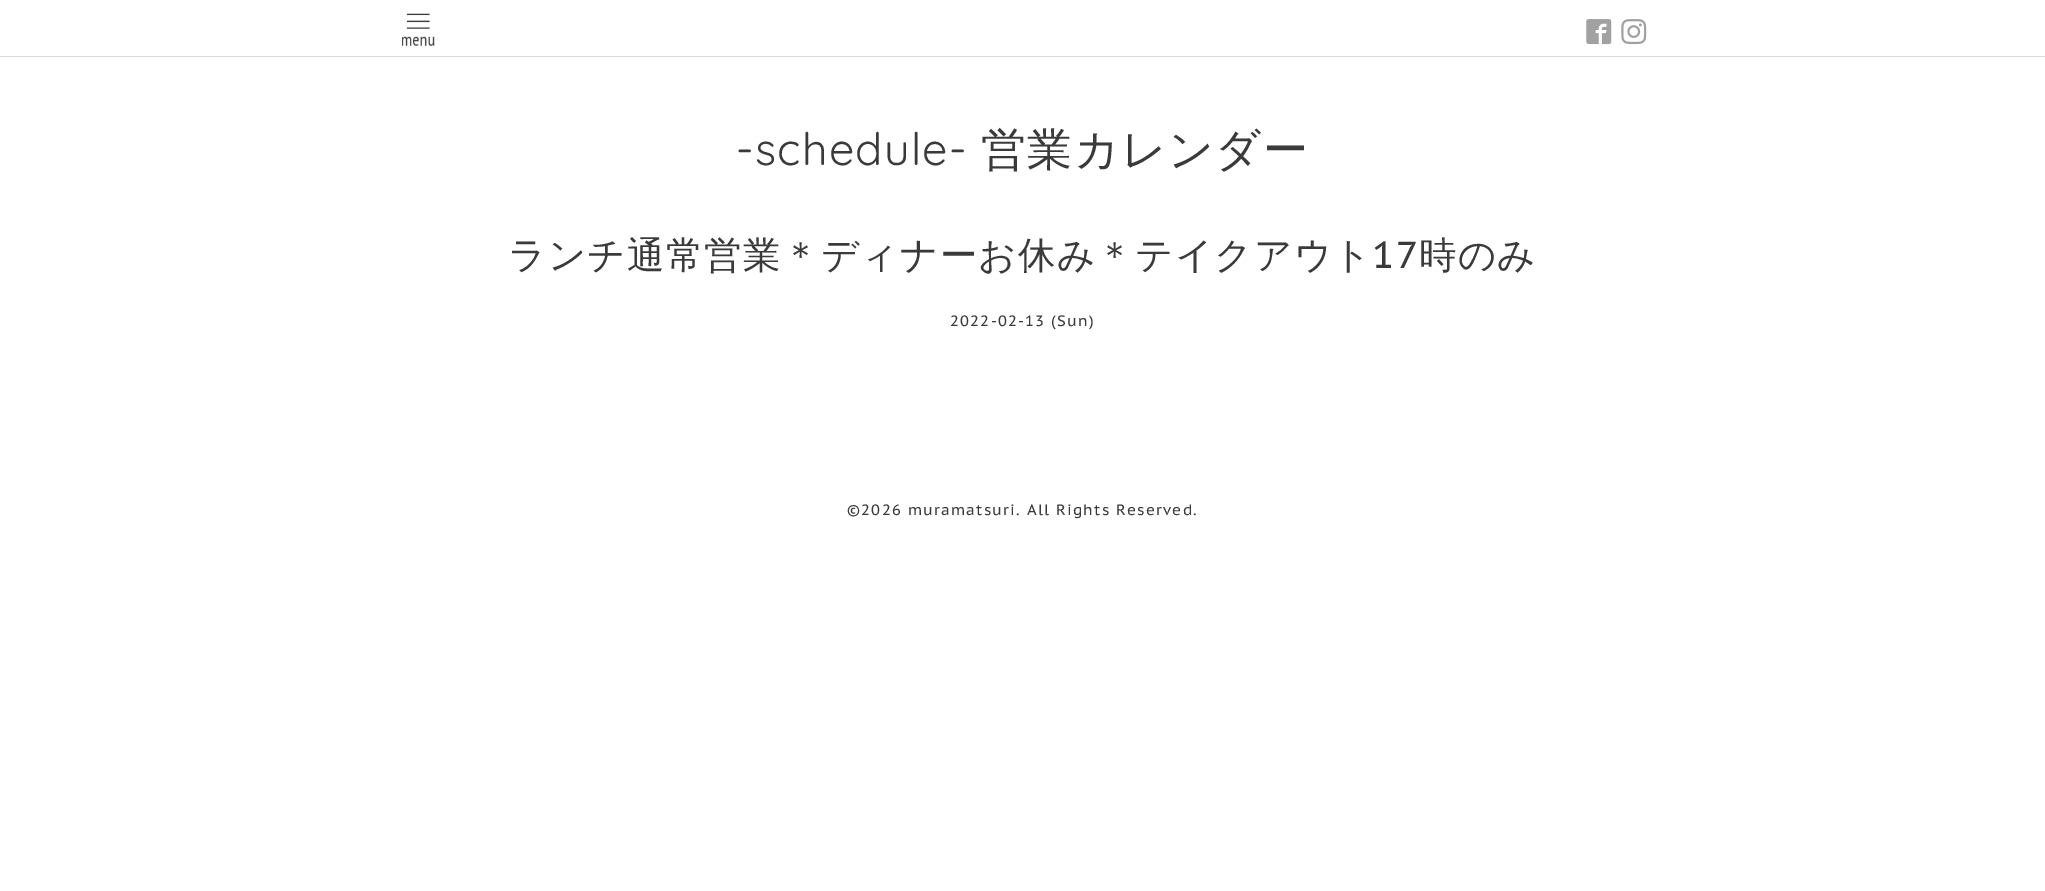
%!PS-Adobe-3.0
%%BoundingBox: 0 0 2045 891
%%LanguageLevel: 3
%%Pages: 1
%%EndComments
%%BeginProlog
/setink { 3 { 255 div 3 1 roll } repeat setrgbcolor } def
/usefont { [ exch dup neg 0 0 3 -1 roll 0 0 ] selectfont } def
/fillbox { setink rectfill } def
/drawimage { 5 dict begin { /h /w /y /x /name } { exch def } forall
  gsave x y translate w h scale
  w h 8 [w 0 0 h 0 0] name (r) file false 3 colorimage grestore end } def
%%EndProlog
%%BeginSetup
<< /PageSize [2045 891] >> setpagedevice
%%EndSetup
%%Page: 1 1
0 891 translate 1 -1 scale
4 setmiterlimit
0 0 2045 891 255 255 255 fillbox
0 56 2045 1 218 219 219 fillbox
(assets/img1.rgb) 402 13 33 33 drawimage
(assets/img2.rgb) 1586 19 26 26 drawimage
(assets/img3.rgb) 1621 19 26 26 drawimage
/Quicksand-Regular 45 usefont
58 58 58 setink
736 165 moveto 1.25 0 (-schedule-) ashow
/WenQuanYiZenHei-Medium 45 usefont
981 165 moveto 1.25 0 (営業カレンダー) ashow
/WenQuanYiZenHei-Medium 37.5 usefont
508 268 moveto 1.25 0 (ランチ通常営業＊ディナーお休み＊テイクアウト) ashow
/PTSansCaption-Regular 37.5 usefont
1372 268 moveto 1.25 0 (17) ashow
/WenQuanYiZenHei-Medium 37.5 usefont
1419 268 moveto 1.25 0 (時のみ) ashow
/PTSansCaption-Regular 15 usefont
950 326 moveto 1.25 0 (2022-02-13 \(Sun\)) ashow
847 515 moveto 1.25 0 (©2026 muramatsuri. All Rights Reserved.) ashow
showpage
%%EOF
